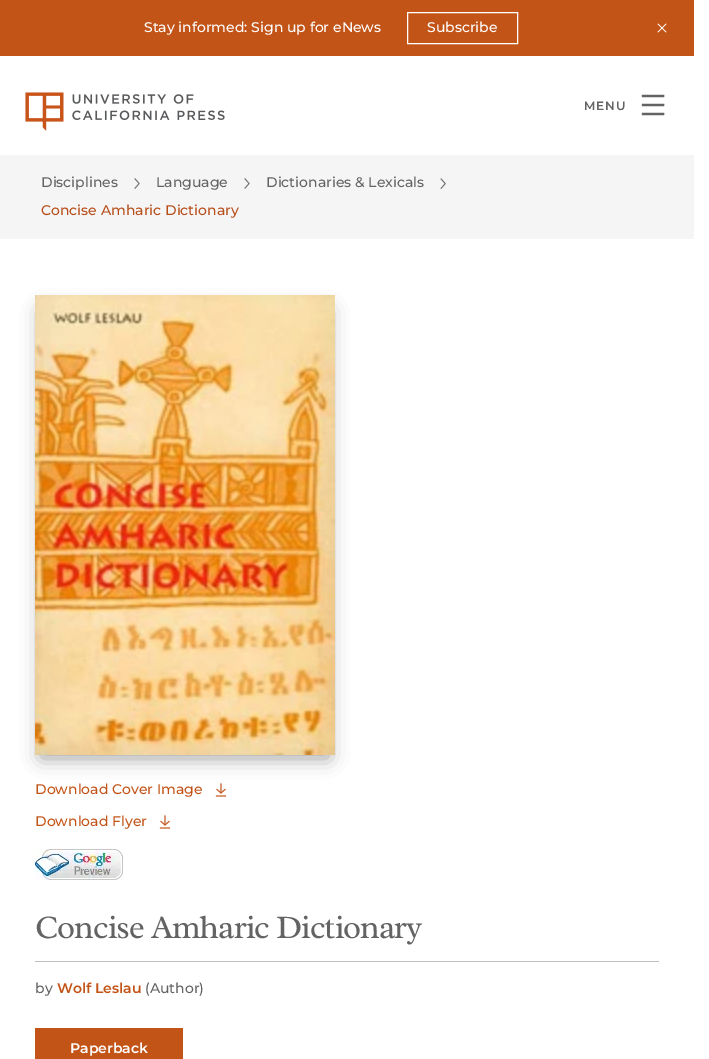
%!PS-Adobe-3.0
%%BoundingBox: 0 0 709 1059
%%LanguageLevel: 3
%%Pages: 1
%%EndComments
%%BeginProlog
/setink { 3 { 255 div 3 1 roll } repeat setrgbcolor } def
/usefont { [ exch dup neg 0 0 3 -1 roll 0 0 ] selectfont } def
/drawtext { setink usefont moveto show } def
/fillbox { setink rectfill } def
/setalpha { dup .setfillconstantalpha .setstrokeconstantalpha } def
/rrect { 5 dict begin { /r /h /w /y /x } { exch def } forall
  x r add y moveto x w add y 2 copy h add r arct x w add y h add x 1 index r arct
  x y h add x y r arct x y 2 copy exch w add exch r arct closepath end } def
/softshadow { 12 dict begin { /a /b /q /h /w /y /x } { exch def } forall gsave /was 0 def
  9 -2 -9 { dup b mul 4 div /e exch def 1 sub .425 mul 2.718 exch exp 1 add a .99 .min exch div /now exch def
    1 1 now sub 1 was sub div sub setalpha /was now def
    w h .min e 2 mul add 0 gt { x e sub y e sub w e 2 mul add h e 2 mul add
      q e add b .6 mul add w h .min 2 div e add .min 0 .max rrect fill } if } for grestore end } def
/drawimage { 5 dict begin { /h /w /y /x /name } { exch def } forall
  gsave x y translate w h scale
  w h 8 [w 0 0 h 0 0] name (r) file false 3 colorimage grestore end } def
%%EndProlog
%%BeginSetup
<< /PageSize [709 1059] /PageUsesTransparency true >> setpagedevice
%%EndSetup
%%Page: 1 1
0 .pushpdf14devicefilter
0 1059 translate 1 -1 scale
4 setmiterlimit
0 0 709 1059 255 255 255 fillbox
0 0 694 56 195 84 24 fillbox
(Stay informed: Sign up for eNews) 144 32 /Montserrat-Medium 14 255 255 255 drawtext
407.5 12.5 110 31 rectstroke
(Subscribe) 427 32 /Montserrat-Medium 14 255 255 255 drawtext
(assets/img1.rgb) 657 23 10 10 drawimage
(assets/img2.rgb) 25 92 200 39 drawimage
/Montserrat-SemiBold 12 usefont
99 99 99 setink
584 110 moveto 1 0 (MENU) ashow
(assets/img3.rgb) 641 94 24 22 drawimage
0 155 694 84 245 245 245 fillbox
(Disciplines) 41 187 /Montserrat-Medium 14 99 99 99 drawtext
(assets/img4.rgb) 134 178 6 11 drawimage
(Language) 156 187 /Montserrat-Medium 14 99 99 99 drawtext
(assets/img5.rgb) 244 178 6 11 drawimage
(Dictionaries & Lexicals) 266 187 /Montserrat-Medium 14 99 99 99 drawtext
(assets/img6.rgb) 440 178 6 11 drawimage
(Concise Amharic Dictionary) 41 215 /Montserrat-Medium 14 183 78 26 drawtext
(assets/img8.rgb) 215 783 12 14 drawimage
0 0 0 setink
41 310 288 448 0 9.5 0.38 softshadow
(assets/img7.rgb) 35 295 300 460 drawimage
(Download Cover Image) 35 794 /Montserrat-Medium 14 195 84 24 drawtext
(Download Flyer) 35 826 /Montserrat-Medium 14 195 84 24 drawtext
(assets/img8.rgb) 159 815 12 14 drawimage
(assets/img9.rgb) 35 849 88 31 drawimage
/Radley-Regular 33.25 usefont
99 99 99 setink
35 938 moveto -1 0 (Concise Amharic Dictionary) ashow
35 961 624 1 191 191 191 fillbox
(by) 35 993 /Montserrat-Medium 14 99 99 99 drawtext
(Wolf Leslau) 57 993 /Montserrat-SemiBold 14 195 84 24 drawtext
(\(Author\)) 145 993 /Montserrat-Medium 14 99 99 99 drawtext
35 1028 148 31 195 84 24 fillbox
(Paperback) 70 1053 /Montserrat-SemiBold 14 255 255 255 drawtext
.poppdf14devicefilter showpage
%%EOF
